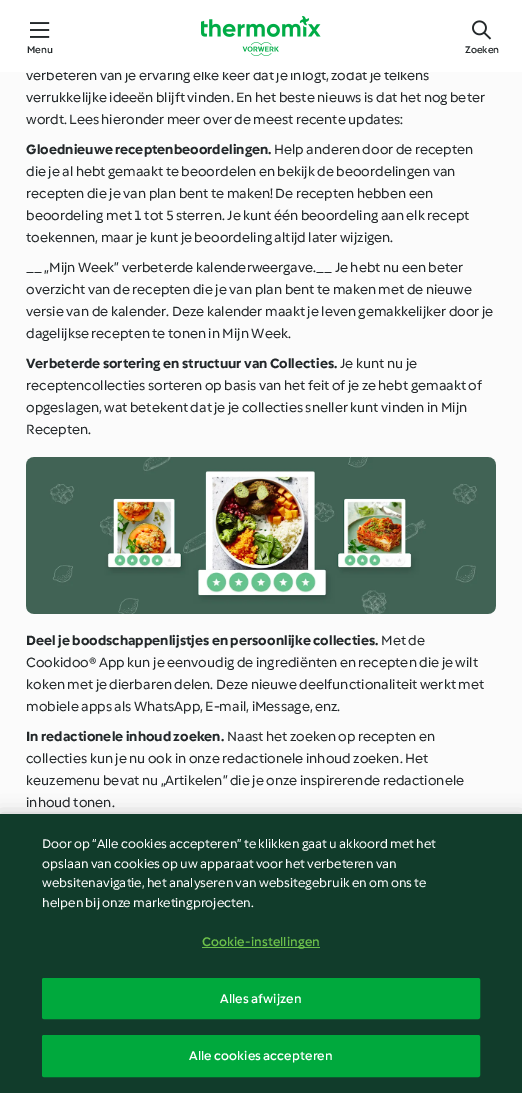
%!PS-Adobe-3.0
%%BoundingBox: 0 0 522 1093
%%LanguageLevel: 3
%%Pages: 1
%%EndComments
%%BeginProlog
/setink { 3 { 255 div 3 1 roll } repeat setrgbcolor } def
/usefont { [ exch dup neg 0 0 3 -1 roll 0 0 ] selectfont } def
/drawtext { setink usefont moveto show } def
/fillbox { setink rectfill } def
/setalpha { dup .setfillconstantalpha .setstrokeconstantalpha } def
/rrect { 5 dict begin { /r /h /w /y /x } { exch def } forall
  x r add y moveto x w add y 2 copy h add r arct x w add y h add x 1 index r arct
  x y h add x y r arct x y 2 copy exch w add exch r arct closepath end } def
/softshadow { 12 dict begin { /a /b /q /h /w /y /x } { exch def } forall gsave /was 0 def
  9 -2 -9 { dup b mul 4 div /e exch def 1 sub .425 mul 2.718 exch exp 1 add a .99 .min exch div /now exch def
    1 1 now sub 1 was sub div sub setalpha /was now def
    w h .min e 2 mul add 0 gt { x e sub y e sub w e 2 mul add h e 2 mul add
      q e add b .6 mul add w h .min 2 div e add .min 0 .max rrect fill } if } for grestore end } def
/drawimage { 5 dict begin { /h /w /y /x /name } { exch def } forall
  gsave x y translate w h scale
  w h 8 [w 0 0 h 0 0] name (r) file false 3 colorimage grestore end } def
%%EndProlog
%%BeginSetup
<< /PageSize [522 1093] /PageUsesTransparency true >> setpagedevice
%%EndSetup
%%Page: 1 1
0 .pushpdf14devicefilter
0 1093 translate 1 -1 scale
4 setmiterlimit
0 0 522 1093 251 251 251 fillbox
(verbeteren van je ervaring elke keer dat je inlogt, zodat je telkens) 26 80 /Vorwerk-Regular 14 35 40 42 drawtext
0 0 522 72 255 255 255 fillbox
(assets/img1.rgb) 30 22 20 16 drawimage
(Menu) 27 53 /Vorwerk-Medium 10 35 40 42 drawtext
(assets/img2.rgb) 201 16 120 40 drawimage
(assets/img3.rgb) 472 20 20 20 drawimage
(Zoeken) 465 53 /Vorwerk-Medium 10 35 40 42 drawtext
(verrukkelijke ideeën blijft vinden. En het beste nieuws is dat het nog beter) 26 102 /Vorwerk-Regular 14 35 40 42 drawtext
(wordt. Lees hieronder meer over de meest recente updates:) 26 124 /Vorwerk-Regular 14 35 40 42 drawtext
(Gloednieuwe receptenbeoordelingen.) 26 154 /Vorwerk-Bold 14 35 40 42 drawtext
(Help anderen door de recepten) 274 154 /Vorwerk-Regular 14 35 40 42 drawtext
(die je al hebt gemaakt te beoordelen en bekijk de beoordelingen van) 26 176 /Vorwerk-Regular 14 35 40 42 drawtext
(recepten die je van plan bent te maken! De recepten hebben een) 26 198 /Vorwerk-Regular 14 35 40 42 drawtext
(beoordeling met 1 tot 5 sterren. Je kunt één beoordeling aan elk recept) 26 220 /Vorwerk-Regular 14 35 40 42 drawtext
(toekennen, maar je kunt je beoordeling altijd later wijzigen.) 26 242 /Vorwerk-Regular 14 35 40 42 drawtext
(__ „Mijn Week” verbeterde kalenderweergave.__ Je hebt nu een beter) 26 272 /Vorwerk-Regular 14 35 40 42 drawtext
(overzicht van de recepten die je van plan bent te maken met de nieuwe) 26 294 /Vorwerk-Regular 14 35 40 42 drawtext
(versie van de kalender. Deze kalender maakt je leven gemakkelijker door je) 26 316 /Vorwerk-Regular 14 35 40 42 drawtext
(dagelijkse recepten te tonen in Mijn Week.) 26 338 /Vorwerk-Regular 14 35 40 42 drawtext
(Verbeterde sortering en structuur van Collecties.) 26 368 /Vorwerk-Bold 14 35 40 42 drawtext
(Je kunt nu je) 340 368 /Vorwerk-Regular 14 35 40 42 drawtext
(receptencollecties sorteren op basis van het feit of je ze hebt gemaakt of) 26 390 /Vorwerk-Regular 14 35 40 42 drawtext
(opgeslagen, wat betekent dat je je collecties sneller kunt vinden in Mijn) 26 412 /Vorwerk-Regular 14 35 40 42 drawtext
(Recepten.) 26 434 /Vorwerk-Regular 14 35 40 42 drawtext
(assets/img4.rgb) 26 457 470 157 drawimage
(Deel je boodschappenlijstjes en persoonlijke collecties.) 26 645 /Vorwerk-Bold 14 35 40 42 drawtext
(Met de) 381 645 /Vorwerk-Regular 14 35 40 42 drawtext
(Cookidoo® App kun je eenvoudig de ingrediënten en recepten die je wilt) 26 667 /Vorwerk-Regular 14 35 40 42 drawtext
(koken met je dierbaren delen. Deze nieuwe deelfunctionaliteit werkt met) 26 689 /Vorwerk-Regular 14 35 40 42 drawtext
(mobiele apps als WhatsApp, E-mail, iMessage, enz.) 26 711 /Vorwerk-Regular 14 35 40 42 drawtext
(In redactionele inhoud zoeken.) 26 741 /Vorwerk-Bold 14 35 40 42 drawtext
(Naast het zoeken op recepten en) 227 741 /Vorwerk-Regular 14 35 40 42 drawtext
(collecties kun je nu ook in onze redactionele inhoud zoeken. Het) 26 763 /Vorwerk-Regular 14 35 40 42 drawtext
(keuzemenu bevat nu „Artikelen” die je onze inspirerende redactionele) 26 785 /Vorwerk-Regular 14 35 40 42 drawtext
(inhoud tonen.) 26 807 /Vorwerk-Regular 14 35 40 42 drawtext
0 0 0 setink
0 814 522 279 0 9 0.2 softshadow
0 814 522 279 17 60 43 fillbox
(Door op “Alle cookies accepteren” te klikken gaat u akkoord met het) 42 848 /Vorwerk-Regular 13 255 255 255 drawtext
(opslaan van cookies op uw apparaat voor het verbeteren van) 42 868 /Vorwerk-Regular 13 255 255 255 drawtext
(websitenavigatie, het analyseren van websitegebruik en om ons te) 42 887 /Vorwerk-Regular 13 255 255 255 drawtext
(helpen bij onze marketingprojecten.) 42 907 /Vorwerk-Regular 13 255 255 255 drawtext
202 947 118 1 108 192 74 fillbox
/Vorwerk-Medium 13 usefont
202 946 moveto 0.1 0 (Cookie-instellingen) ashow
0 169 61 setink
42.5 978.5 437 40 1.5 rrect gsave fill grestore
stroke
255 255 255 setink
220 1003 moveto 0.1 0 (Alles afwijzen) ashow
0 169 61 setink
42.5 1035.5 437 41 1.5 rrect gsave fill grestore
stroke
255 255 255 setink
189 1060 moveto 0.1 0 (Alle cookies accepteren) ashow
.poppdf14devicefilter showpage
%%EOF
